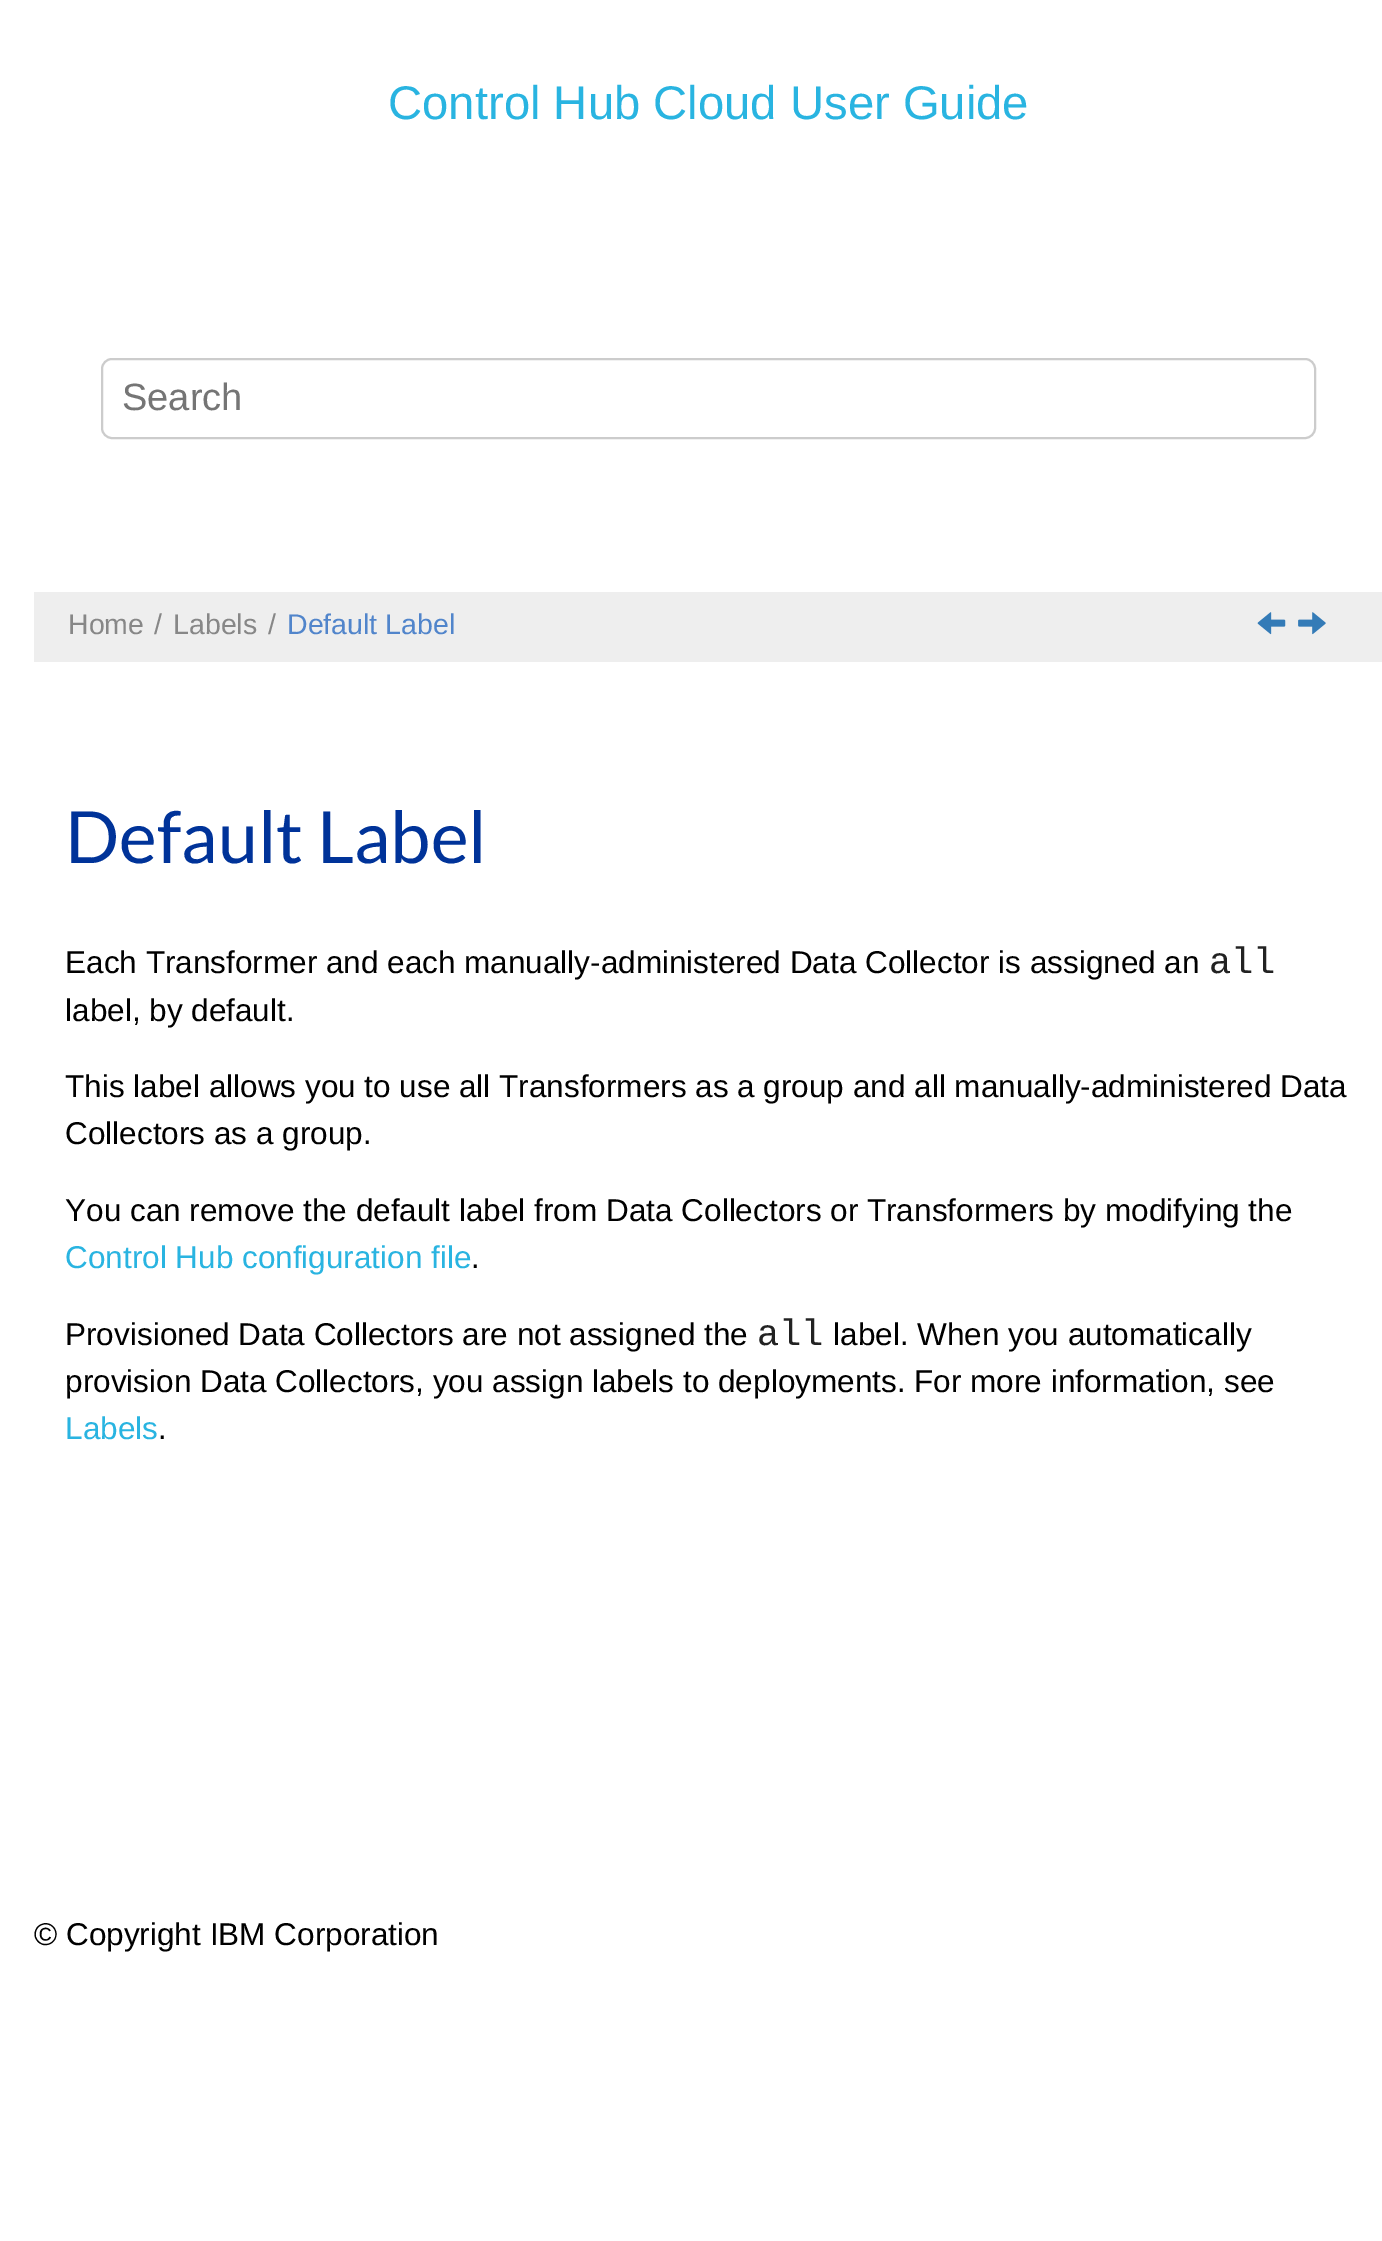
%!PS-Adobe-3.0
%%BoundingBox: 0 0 1382 2241
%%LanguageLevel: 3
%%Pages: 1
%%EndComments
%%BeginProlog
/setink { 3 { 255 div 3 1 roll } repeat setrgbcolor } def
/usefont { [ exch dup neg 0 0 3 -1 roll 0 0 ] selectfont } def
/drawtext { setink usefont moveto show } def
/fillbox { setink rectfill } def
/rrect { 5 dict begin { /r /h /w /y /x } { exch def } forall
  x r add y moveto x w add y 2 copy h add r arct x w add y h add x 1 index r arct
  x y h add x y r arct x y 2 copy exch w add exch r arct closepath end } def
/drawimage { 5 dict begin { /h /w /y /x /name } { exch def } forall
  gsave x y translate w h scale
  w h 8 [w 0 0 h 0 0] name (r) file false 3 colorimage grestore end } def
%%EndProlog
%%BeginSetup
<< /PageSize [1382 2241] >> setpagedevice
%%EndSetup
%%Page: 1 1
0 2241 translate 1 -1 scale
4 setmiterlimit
0 0 1382 2241 255 255 255 fillbox
(Control Hub Cloud User Guide) 388 119 /LiberationSans-Regular 47.25 41 180 225 drawtext
204 204 204 setink
2 setlinewidth
102 359 1213 79 10 rrect stroke
(Search) 122 410 /LiberationSans-Regular 38 117 117 117 drawtext
34 592 1348 70 238 238 238 fillbox
(Home) 68 634 /LiberationSans-Regular 28.5 135 135 135 drawtext
(/) 154 634 /LiberationSans-Regular 28.5 135 135 135 drawtext
(Labels) 173 634 /LiberationSans-Regular 28.5 135 135 135 drawtext
(/) 268 634 /LiberationSans-Regular 28.5 135 135 135 drawtext
(Default Label) 287 634 /LiberationSans-Regular 28.5 81 133 203 drawtext
(assets/img1.rgb) 1257 612 29 23 drawimage
(assets/img2.rgb) 1298 612 28 23 drawimage
(Default Label) 65 863 /Lato-Regular 72 0 51 153 drawtext
(Each Transformer and each manually-administered Data Collector is assigned an) 65 973 /LiberationSans-Regular 31.5 0 0 0 drawtext
(all) 1209 973 /LiberationMono-Regular 37 34 34 34 drawtext
(label, by default.) 65 1021 /LiberationSans-Regular 31.5 0 0 0 drawtext
(This label allows you to use all Transformers as a group and all manually-administered Data) 65 1097 /LiberationSans-Regular 31.5 0 0 0 drawtext
(Collectors as a group.) 65 1144 /LiberationSans-Regular 31.5 0 0 0 drawtext
(You can remove the default label from Data Collectors or Transformers by modifying the) 65 1221 /LiberationSans-Regular 31.5 0 0 0 drawtext
(Control Hub configuration file) 65 1268 /LiberationSans-Regular 31.5 41 180 225 drawtext
(.) 471 1268 /LiberationSans-Regular 31.5 0 0 0 drawtext
(Provisioned Data Collectors are not assigned the) 65 1345 /LiberationSans-Regular 31.5 0 0 0 drawtext
(all) 757 1345 /LiberationMono-Regular 37 34 34 34 drawtext
(label. When you automatically) 833 1345 /LiberationSans-Regular 31.5 0 0 0 drawtext
(provision Data Collectors, you assign labels to deployments. For more information, see) 65 1392 /LiberationSans-Regular 31.5 0 0 0 drawtext
(Labels) 65 1439 /LiberationSans-Regular 31.5 41 180 225 drawtext
(.) 158 1439 /LiberationSans-Regular 31.5 0 0 0 drawtext
(© Copyright IBM Corporation) 34 1945 /LiberationSans-Regular 31.5 0 0 0 drawtext
showpage
%%EOF
